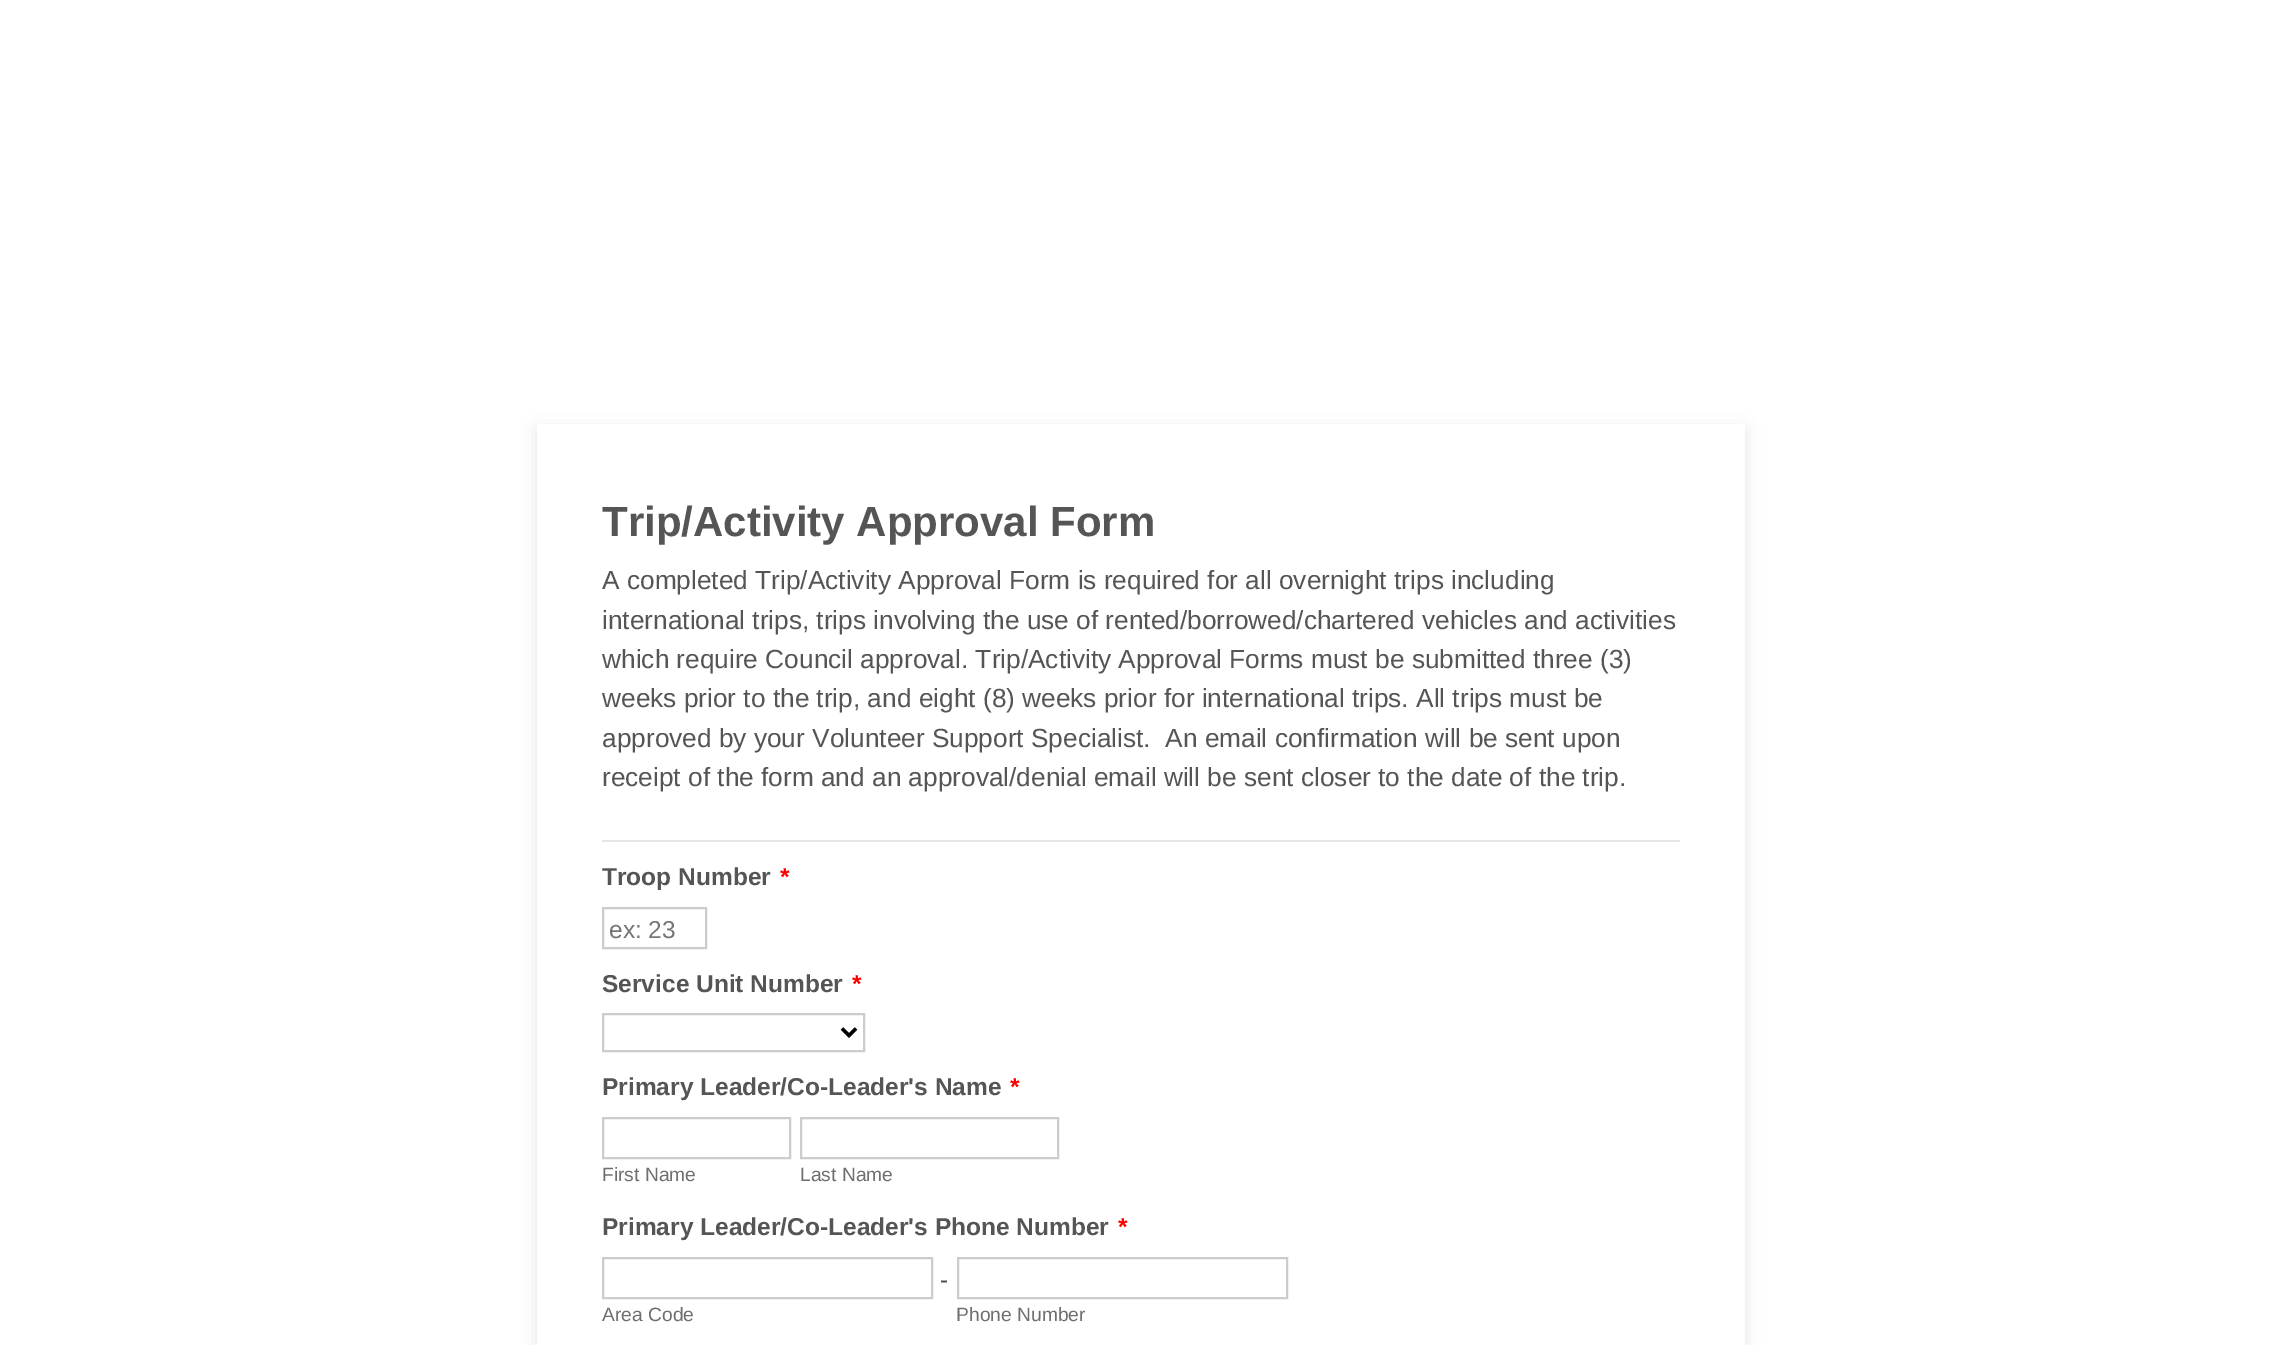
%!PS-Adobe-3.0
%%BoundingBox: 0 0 2281 1345
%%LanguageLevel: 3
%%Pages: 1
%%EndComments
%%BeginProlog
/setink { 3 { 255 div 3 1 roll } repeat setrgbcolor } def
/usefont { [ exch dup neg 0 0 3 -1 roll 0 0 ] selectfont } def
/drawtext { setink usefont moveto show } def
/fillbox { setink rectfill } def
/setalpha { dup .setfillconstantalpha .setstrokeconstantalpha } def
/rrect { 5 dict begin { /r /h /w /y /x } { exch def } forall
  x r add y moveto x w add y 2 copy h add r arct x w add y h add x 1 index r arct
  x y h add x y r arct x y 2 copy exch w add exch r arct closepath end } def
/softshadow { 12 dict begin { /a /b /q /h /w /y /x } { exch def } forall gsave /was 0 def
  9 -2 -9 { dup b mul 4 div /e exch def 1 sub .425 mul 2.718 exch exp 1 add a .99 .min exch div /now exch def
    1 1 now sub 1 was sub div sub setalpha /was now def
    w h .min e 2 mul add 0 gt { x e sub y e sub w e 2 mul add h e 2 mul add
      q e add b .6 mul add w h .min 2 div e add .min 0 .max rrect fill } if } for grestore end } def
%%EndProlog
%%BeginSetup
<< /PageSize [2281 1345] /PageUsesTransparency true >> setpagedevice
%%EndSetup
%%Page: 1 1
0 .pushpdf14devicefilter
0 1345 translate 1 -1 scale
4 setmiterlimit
0 0 2281 1345 255 255 255 fillbox
0 0 0 setink
537 429 1208 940 0 8 0.1 softshadow
537 424 1208 921 255 255 255 fillbox
602 840 1078 2 230 230 230 fillbox
(Trip/Activity Approval Form) 602 536 /LiberationSans-Bold 42 85 85 85 drawtext
(A completed Trip/Activity Approval Form is required for all overnight trips including) 602 589 /LiberationSans-Regular 26.25 85 85 85 drawtext
(international trips, trips involving the use of rented/borrowed/chartered vehicles and activities) 602 629 /LiberationSans-Regular 26.25 85 85 85 drawtext
(which require Council approval. Trip/Activity Approval Forms must be submitted three \(3\)) 602 668 /LiberationSans-Regular 26.25 85 85 85 drawtext
(weeks prior to the trip, and eight \(8\) weeks prior for international trips. All trips must be) 602 707 /LiberationSans-Regular 26.25 85 85 85 drawtext
(approved by your Volunteer Support Specialist.  An email confirmation will be sent upon) 602 747 /LiberationSans-Regular 26.25 85 85 85 drawtext
(receipt of the form and an approval/denial email will be sent closer to the date of the trip.) 602 786 /LiberationSans-Regular 26.25 85 85 85 drawtext
(Troop Number) 602 885 /LiberationSans-Bold 24.5 85 85 85 drawtext
(*) 780 885 /LiberationSans-Bold 24.5 255 0 0 drawtext
204 204 204 setink
2 setlinewidth
603 908 103 40 rectstroke
(ex: 23) 609 938 /LiberationSans-Regular 24.5 117 117 117 drawtext
(Service Unit Number) 602 992 /LiberationSans-Bold 24.5 85 85 85 drawtext
(*) 852 992 /LiberationSans-Bold 24.5 255 0 0 drawtext
204 204 204 setink
603 1014 261 37 rectstroke
0 0 0 setink
3.5 setlinewidth
842 1028.5 moveto 849 1035.5 lineto 856 1028.5 lineto stroke
(Primary Leader/Co-Leader's Name) 602 1095 /LiberationSans-Bold 24.5 85 85 85 drawtext
(*) 1010 1095 /LiberationSans-Bold 24.5 255 0 0 drawtext
204 204 204 setink
2 setlinewidth
603 1118 187 40 rectstroke
(First Name) 602 1181 /LiberationSans-Regular 19.25 111 111 111 drawtext
204 204 204 setink
801 1118 257 40 rectstroke
(Last Name) 800 1181 /LiberationSans-Regular 19.25 111 111 111 drawtext
(Primary Leader/Co-Leader's Phone Number) 602 1235 /LiberationSans-Bold 24.5 85 85 85 drawtext
(*) 1118 1235 /LiberationSans-Bold 24.5 255 0 0 drawtext
204 204 204 setink
603 1258 329 40 rectstroke
(-) 940 1288 /LiberationSans-Regular 24.5 85 85 85 drawtext
(Area Code) 602 1321 /LiberationSans-Regular 19.25 111 111 111 drawtext
204 204 204 setink
958 1258 329 40 rectstroke
(Phone Number) 956 1321 /LiberationSans-Regular 19.25 111 111 111 drawtext
.poppdf14devicefilter showpage
%%EOF
